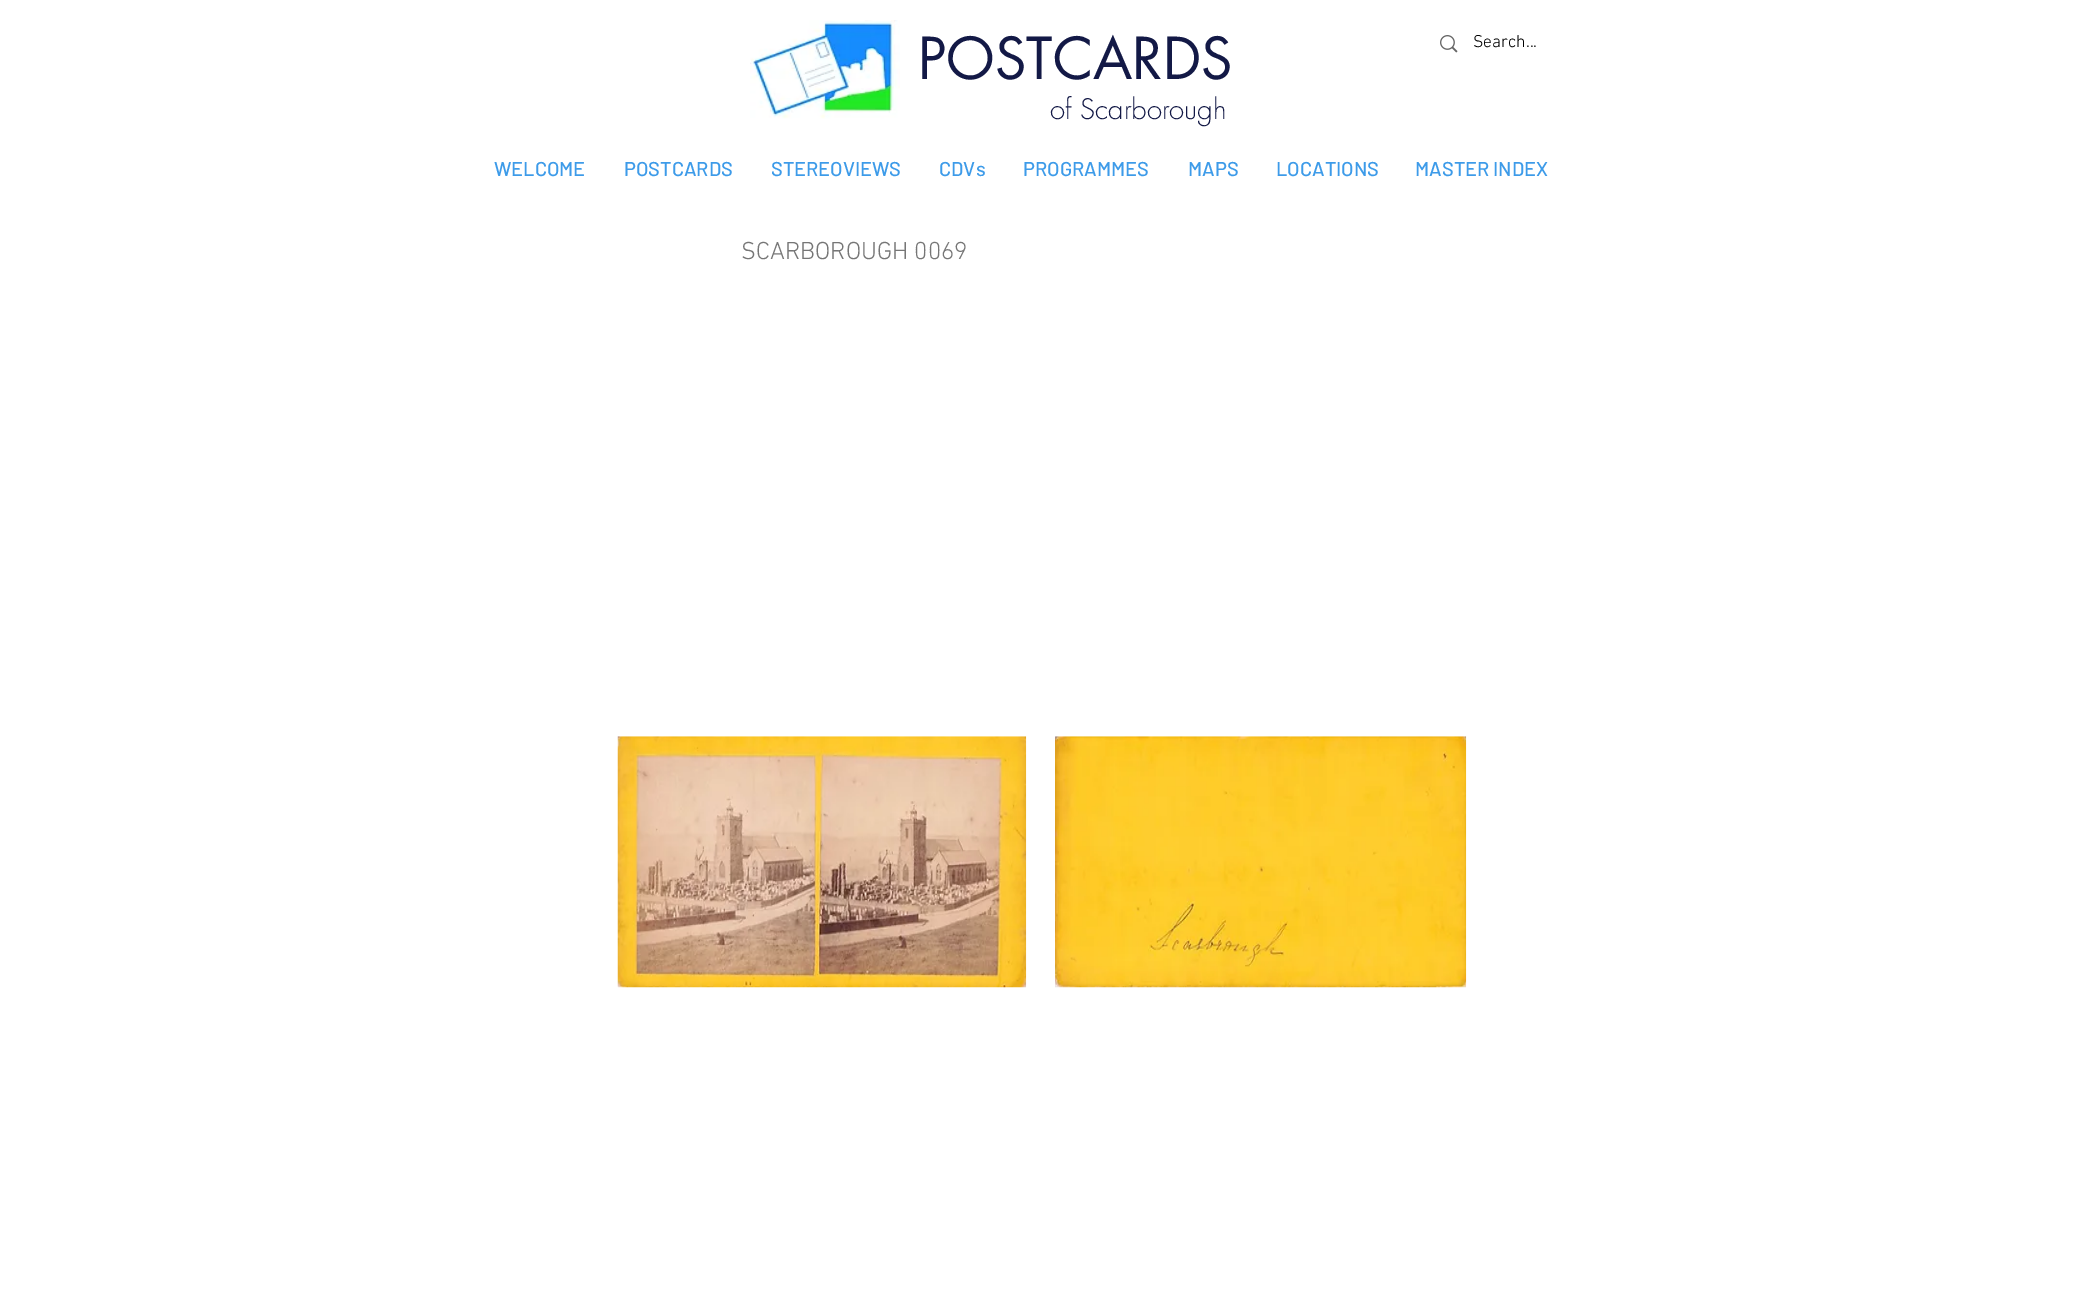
%!PS-Adobe-3.0
%%BoundingBox: 0 0 2085 1309
%%LanguageLevel: 3
%%Pages: 1
%%EndComments
%%BeginProlog
/setink { 3 { 255 div 3 1 roll } repeat setrgbcolor } def
/usefont { [ exch dup neg 0 0 3 -1 roll 0 0 ] selectfont } def
/drawtext { setink usefont moveto show } def
/fillbox { setink rectfill } def
/drawimage { 5 dict begin { /h /w /y /x /name } { exch def } forall
  gsave x y translate w h scale
  w h 8 [w 0 0 h 0 0] name (r) file false 3 colorimage grestore end } def
%%EndProlog
%%BeginSetup
<< /PageSize [2085 1309] >> setpagedevice
%%EndSetup
%%Page: 1 1
0 1309 translate 1 -1 scale
4 setmiterlimit
0 0 2085 1309 255 255 255 fillbox
(assets/img1.rgb) 750 20 150 99 drawimage
(POSTCARDS) 918 79 /futura-Regular 56.25 19 25 70 drawtext
(assets/img2.rgb) 1440 35 18 18 drawimage
(Search...) 1473 47 /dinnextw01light-Light 17.5 0 0 0 drawtext
(of Scarborough) 1050 119 /futura-Light 27.5 19 25 70 drawtext
(WELCOME) 494 176 /Barlow-Medium 20 61 155 233 drawtext
(POSTCARDS) 624 176 /Barlow-Medium 20 61 155 233 drawtext
(STEREOVIEWS) 771 176 /Barlow-Medium 20 61 155 233 drawtext
(CDVs) 939 176 /Barlow-Medium 20 61 155 233 drawtext
(PROGRAMMES) 1023 176 /Barlow-Medium 20 61 155 233 drawtext
(MAPS) 1188 176 /Barlow-Medium 20 61 155 233 drawtext
(LOCATIONS) 1276 176 /Barlow-Medium 20 61 155 233 drawtext
(MASTER INDEX) 1415 176 /Barlow-Medium 20 61 155 233 drawtext
(SCARBOROUGH 0069) 741 259 /dinnextw01light-Light 25 118 118 118 drawtext
(assets/img3.rgb) 617 736 410 252 drawimage
(assets/img4.rgb) 1055 736 412 252 drawimage
showpage
%%EOF
